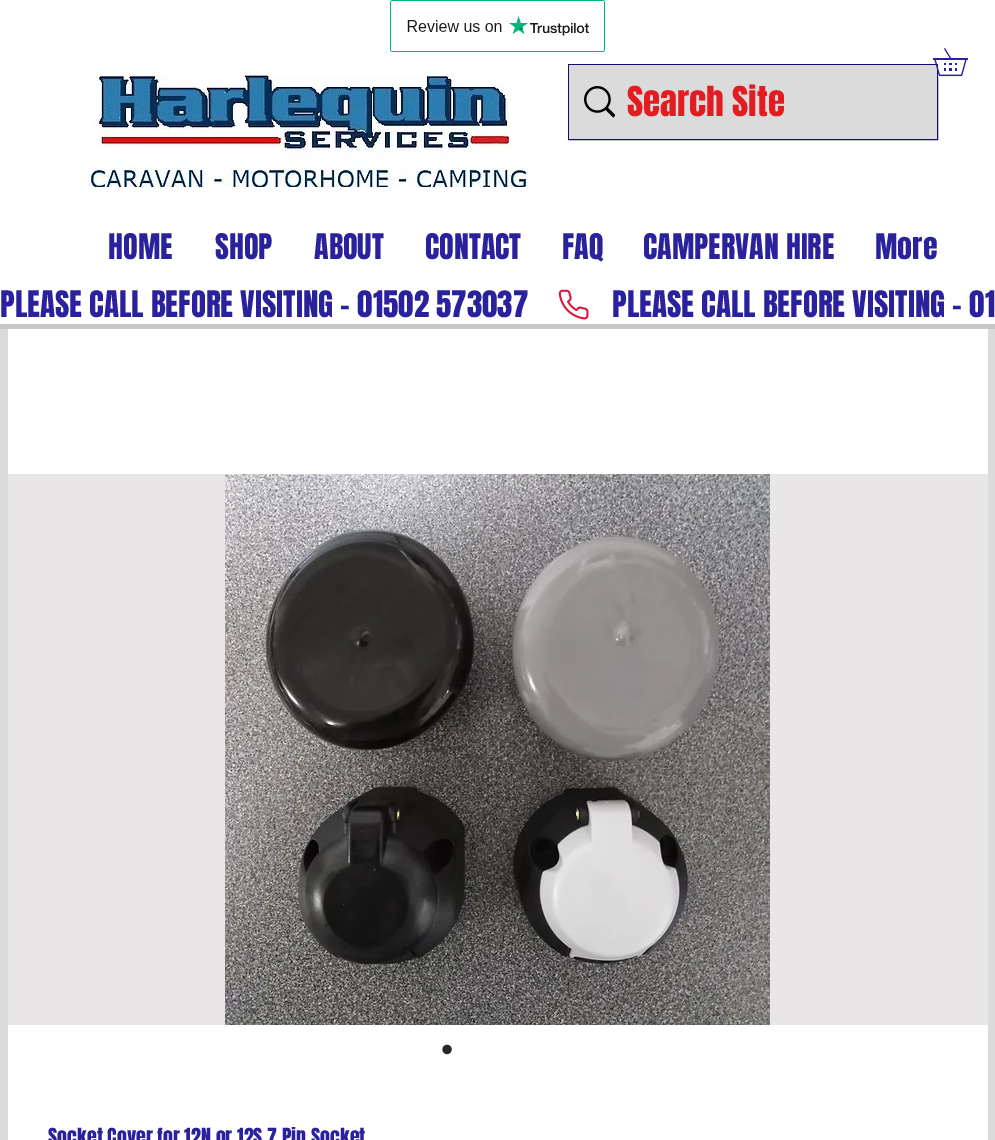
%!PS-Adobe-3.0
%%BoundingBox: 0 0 995 1140
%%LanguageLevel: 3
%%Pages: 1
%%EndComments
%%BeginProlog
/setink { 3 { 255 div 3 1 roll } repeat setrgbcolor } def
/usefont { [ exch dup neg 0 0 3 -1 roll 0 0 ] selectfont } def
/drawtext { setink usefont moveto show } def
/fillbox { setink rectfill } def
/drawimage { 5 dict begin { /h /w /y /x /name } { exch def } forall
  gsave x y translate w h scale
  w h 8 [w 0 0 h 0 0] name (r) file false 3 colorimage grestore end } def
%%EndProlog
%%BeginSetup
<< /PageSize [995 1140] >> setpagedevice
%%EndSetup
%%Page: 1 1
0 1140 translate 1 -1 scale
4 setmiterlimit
0 0 995 1140 255 255 255 fillbox
(assets/img1.rgb) 390 0 215 52 drawimage
18 12 117 setink
568.5 64.5 369 75 rectstroke
569 65 368 74 219 219 219 fillbox
(assets/img2.rgb) 933 48 35 29 drawimage
(assets/img3.rgb) 88 75 441 112 drawimage
(assets/img4.rgb) 584 86 31 32 drawimage
(Search Site) 627 116 /Anton-Regular 35 226 28 33 drawtext
(HOME) 108 259 /Anton-Regular 30 42 34 156 drawtext
(SHOP) 215 259 /Anton-Regular 30 42 34 156 drawtext
(ABOUT) 314 259 /Anton-Regular 30 42 34 156 drawtext
(CONTACT) 425 259 /Anton-Regular 30 42 34 156 drawtext
(FAQ) 562 259 /Anton-Regular 30 42 34 156 drawtext
(CAMPERVAN HIRE) 643 259 /Anton-Regular 30 42 34 156 drawtext
(More) 875 259 /Anton-Regular 30 42 34 156 drawtext
(PLEASE CALL BEFORE VISITING - 01502 573037) 0 317 /Anton-Regular 31 42 34 156 drawtext
(assets/img5.rgb) 558 289 31 31 drawimage
(PLEASE CALL BEFORE VISITING - 01) 612 317 /Anton-Regular 31 42 34 156 drawtext
0 324 995 5 199 199 199 fillbox
0 329 995 811 219 219 219 fillbox
8 329 980 811 255 255 255 fillbox
8 474 980 551 232 230 230 fillbox
(assets/img6.rgb) 225 474 545 551 drawimage
(•) 441 1061 /LiberationSans-Regular 35 40 40 40 drawtext
(Socket Cover for 12N or 12S 7 Pin Socket) 48 1145 /Anton-Regular 20 42 34 156 drawtext
showpage
%%EOF
